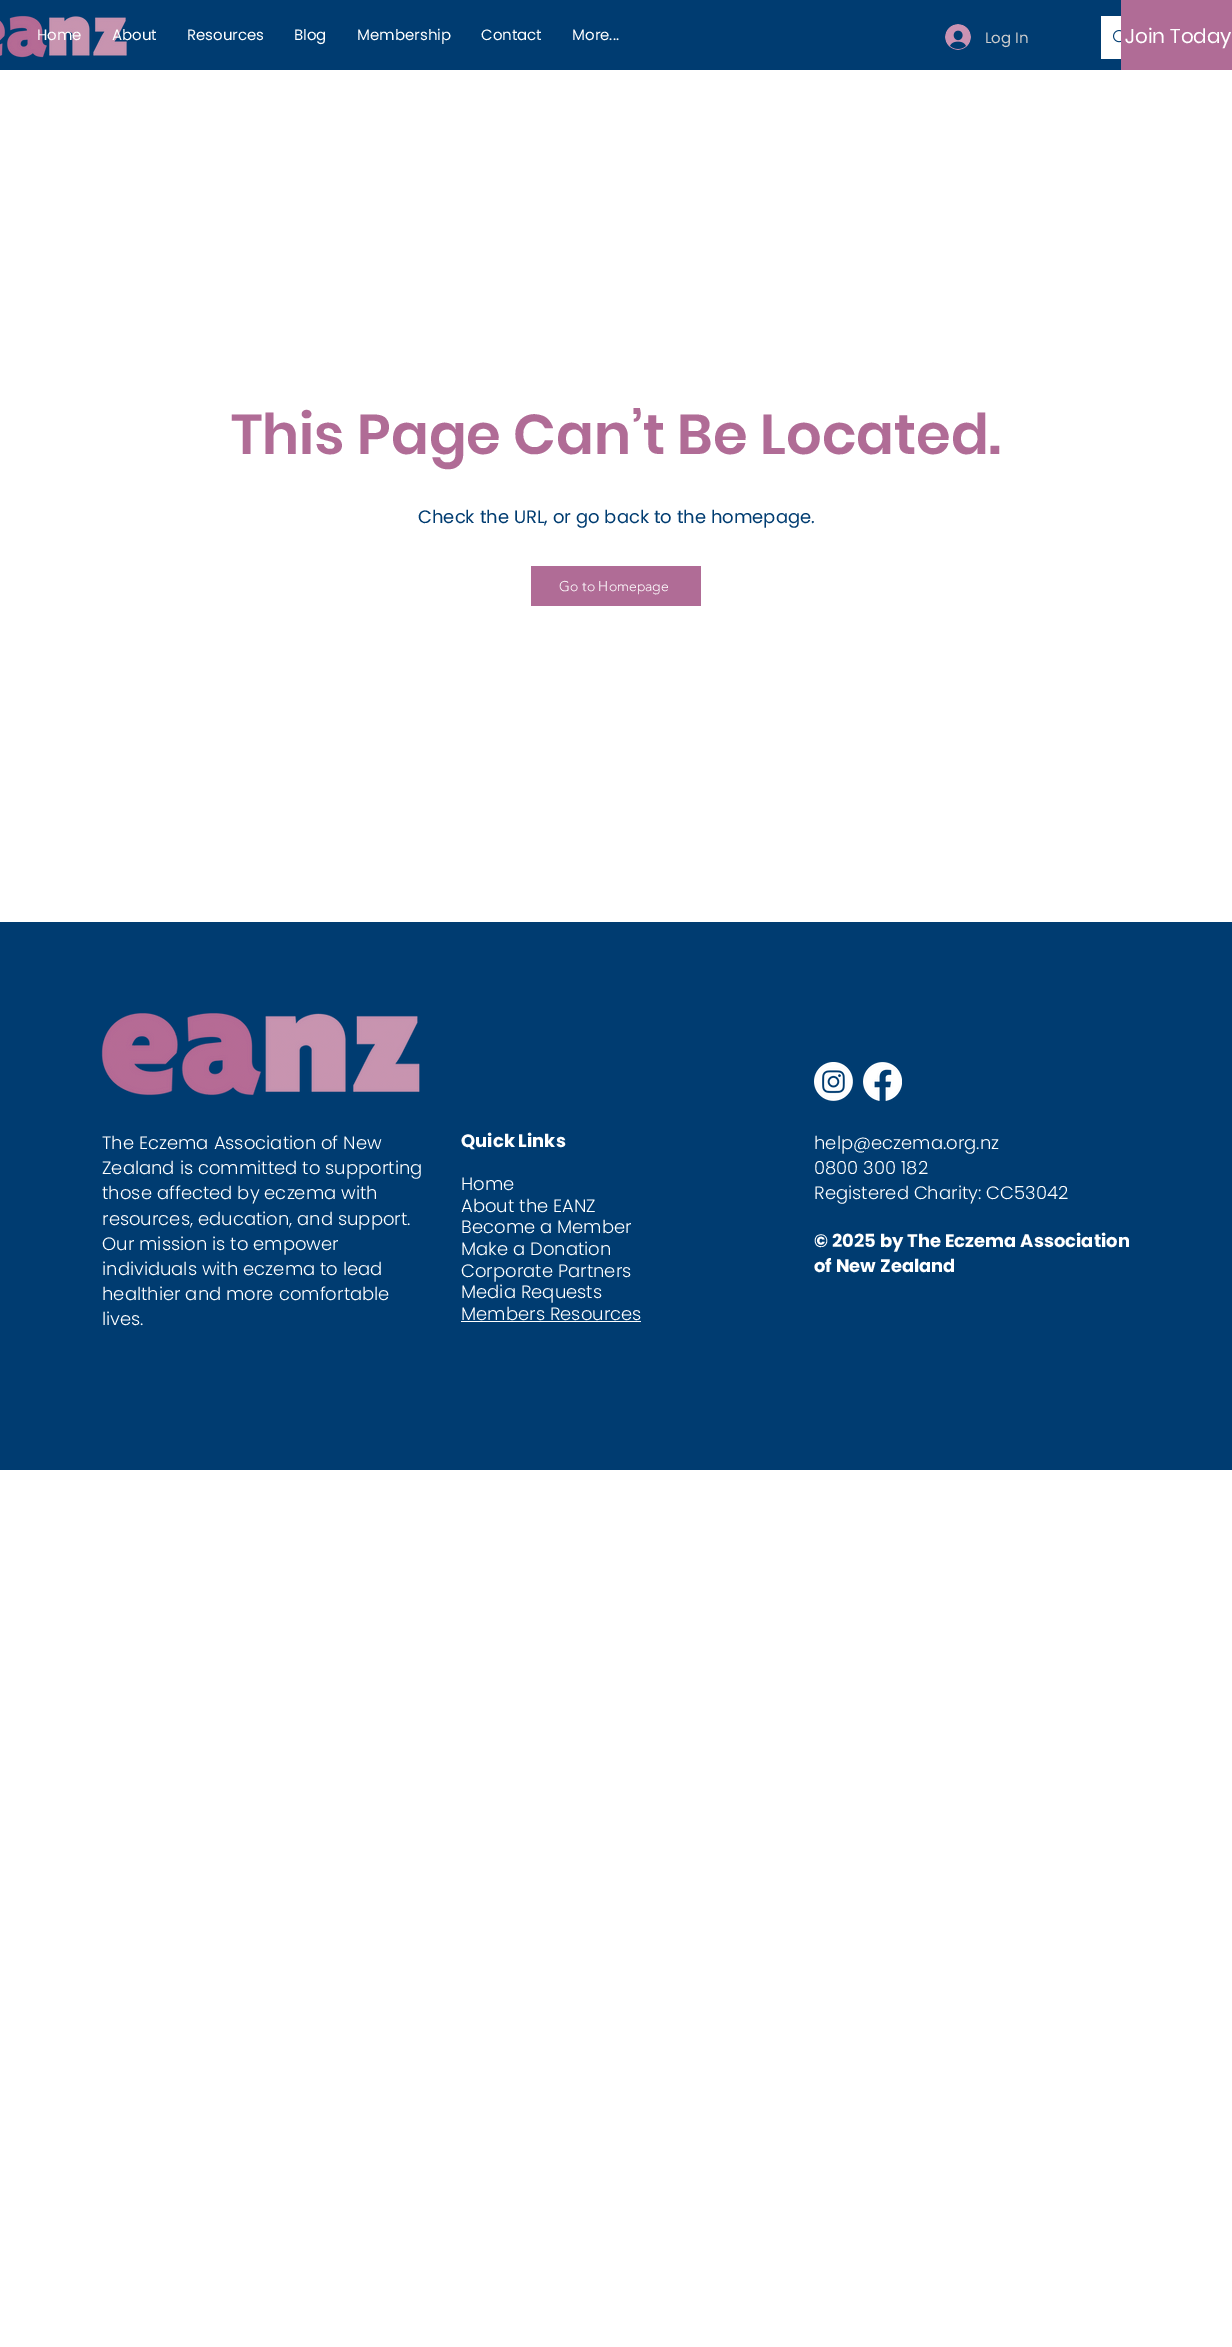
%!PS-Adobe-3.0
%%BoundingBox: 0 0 1232 2347
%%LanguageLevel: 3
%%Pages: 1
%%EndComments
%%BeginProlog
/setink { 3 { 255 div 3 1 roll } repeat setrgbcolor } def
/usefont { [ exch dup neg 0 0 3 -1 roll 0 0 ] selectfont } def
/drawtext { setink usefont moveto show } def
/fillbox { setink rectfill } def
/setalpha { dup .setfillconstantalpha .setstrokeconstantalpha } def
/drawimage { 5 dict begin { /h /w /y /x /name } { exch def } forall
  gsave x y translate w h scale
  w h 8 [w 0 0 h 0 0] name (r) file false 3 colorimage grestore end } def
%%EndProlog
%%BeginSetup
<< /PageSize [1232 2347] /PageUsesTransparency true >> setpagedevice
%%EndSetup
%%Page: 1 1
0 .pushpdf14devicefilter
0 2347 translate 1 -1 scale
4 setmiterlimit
0 0 1232 2347 255 255 255 fillbox
0 0 1121 70 0 60 113 fillbox
(assets/img1.rgb) 0 15 127 43 drawimage
0.6 setalpha
1100.5 15.5 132 44 rectstroke
1 setalpha
1121 0 111 70 176 108 150 fillbox
(Join Today) 1125 43 /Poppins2-Regular 20 255 255 255 drawtext
(Home) 37 40 /Poppins-Regular 15 255 255 255 drawtext
(About) 112 40 /Poppins-Regular 15 255 255 255 drawtext
(Resources) 187 40 /Poppins-Regular 15 255 255 255 drawtext
(Blog) 294 40 /Poppins-Regular 15 255 255 255 drawtext
(Membership) 357 40 /Poppins-Regular 15 255 255 255 drawtext
(Contact) 481 40 /Poppins-Regular 15 255 255 255 drawtext
(More...) 572 40 /Poppins-Regular 15 255 255 255 drawtext
(assets/img2.rgb) 945 24 26 26 drawimage
(Log In) 985 43 /Poppins-Regular 15 204 204 204 drawtext
1101 16 20 43 255 255 255 fillbox
(assets/img3.rgb) 1113 30 8 13 drawimage
(This Page Can’t Be Located.) 231 454 /Poppins-SemiBold 56 176 108 150 drawtext
(Check the URL, or go back to the homepage.) 418 523 /Poppins-Regular 18 0 60 113 drawtext
531 566 170 40 176 108 150 fillbox
(Go to Homepage) 559 591 /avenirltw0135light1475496-Light 14 255 255 255 drawtext
0 922 1232 548 0 60 113 fillbox
(assets/img4.rgb) 101 1013 319 83 drawimage
(The Eczema Association of New) 102 1149 /Poppins-Light 18 255 255 255 drawtext
(Zealand is committed to supporting) 102 1174 /Poppins-Light 18 255 255 255 drawtext
(those affected by eczema with) 102 1199 /Poppins-Light 18 255 255 255 drawtext
(resources, education, and support.) 102 1225 /Poppins-Light 18 255 255 255 drawtext
(Our mission is to empower) 102 1250 /Poppins-Light 18 255 255 255 drawtext
(individuals with eczema to lead) 102 1275 /Poppins-Light 18 255 255 255 drawtext
(healthier and more comfortable) 102 1300 /Poppins-Light 18 255 255 255 drawtext
(lives.) 102 1325 /Poppins-Light 18 255 255 255 drawtext
(Quick Links) 461 1147 /Poppins-Bold 18 255 255 255 drawtext
(Home) 461 1190 /Poppins-Light 18 255 255 255 drawtext
(About the EANZ) 461 1212 /Poppins-Light 18 255 255 255 drawtext
(Become a Member) 461 1233 /Poppins-Light 18 255 255 255 drawtext
(Make a Donation) 461 1255 /Poppins-Light 18 255 255 255 drawtext
(Corporate Partners) 461 1277 /Poppins-Light 18 255 255 255 drawtext
(Media Requests) 461 1298 /Poppins-Light 18 255 255 255 drawtext
(Members Resources) 461 1320 /Poppins-Light 18 255 255 255 drawtext
461 1321 180 1 255 255 255 fillbox
(assets/img5.rgb) 814 1062 39 39 drawimage
(assets/img6.rgb) 863 1062 39 39 drawimage
(help@eczema.org.nz) 814 1149 /Poppins-Light 18 255 255 255 drawtext
(0800 300 182) 814 1174 /Poppins-Light 18 255 255 255 drawtext
(Registered Charity: CC53042) 814 1199 /Poppins-Light 18 255 255 255 drawtext
(© 2025 by The Eczema Association) 814 1247 /Poppins-Bold 18 255 255 255 drawtext
(of New Zealand) 814 1272 /Poppins-Bold 18 255 255 255 drawtext
.poppdf14devicefilter showpage
%%EOF
